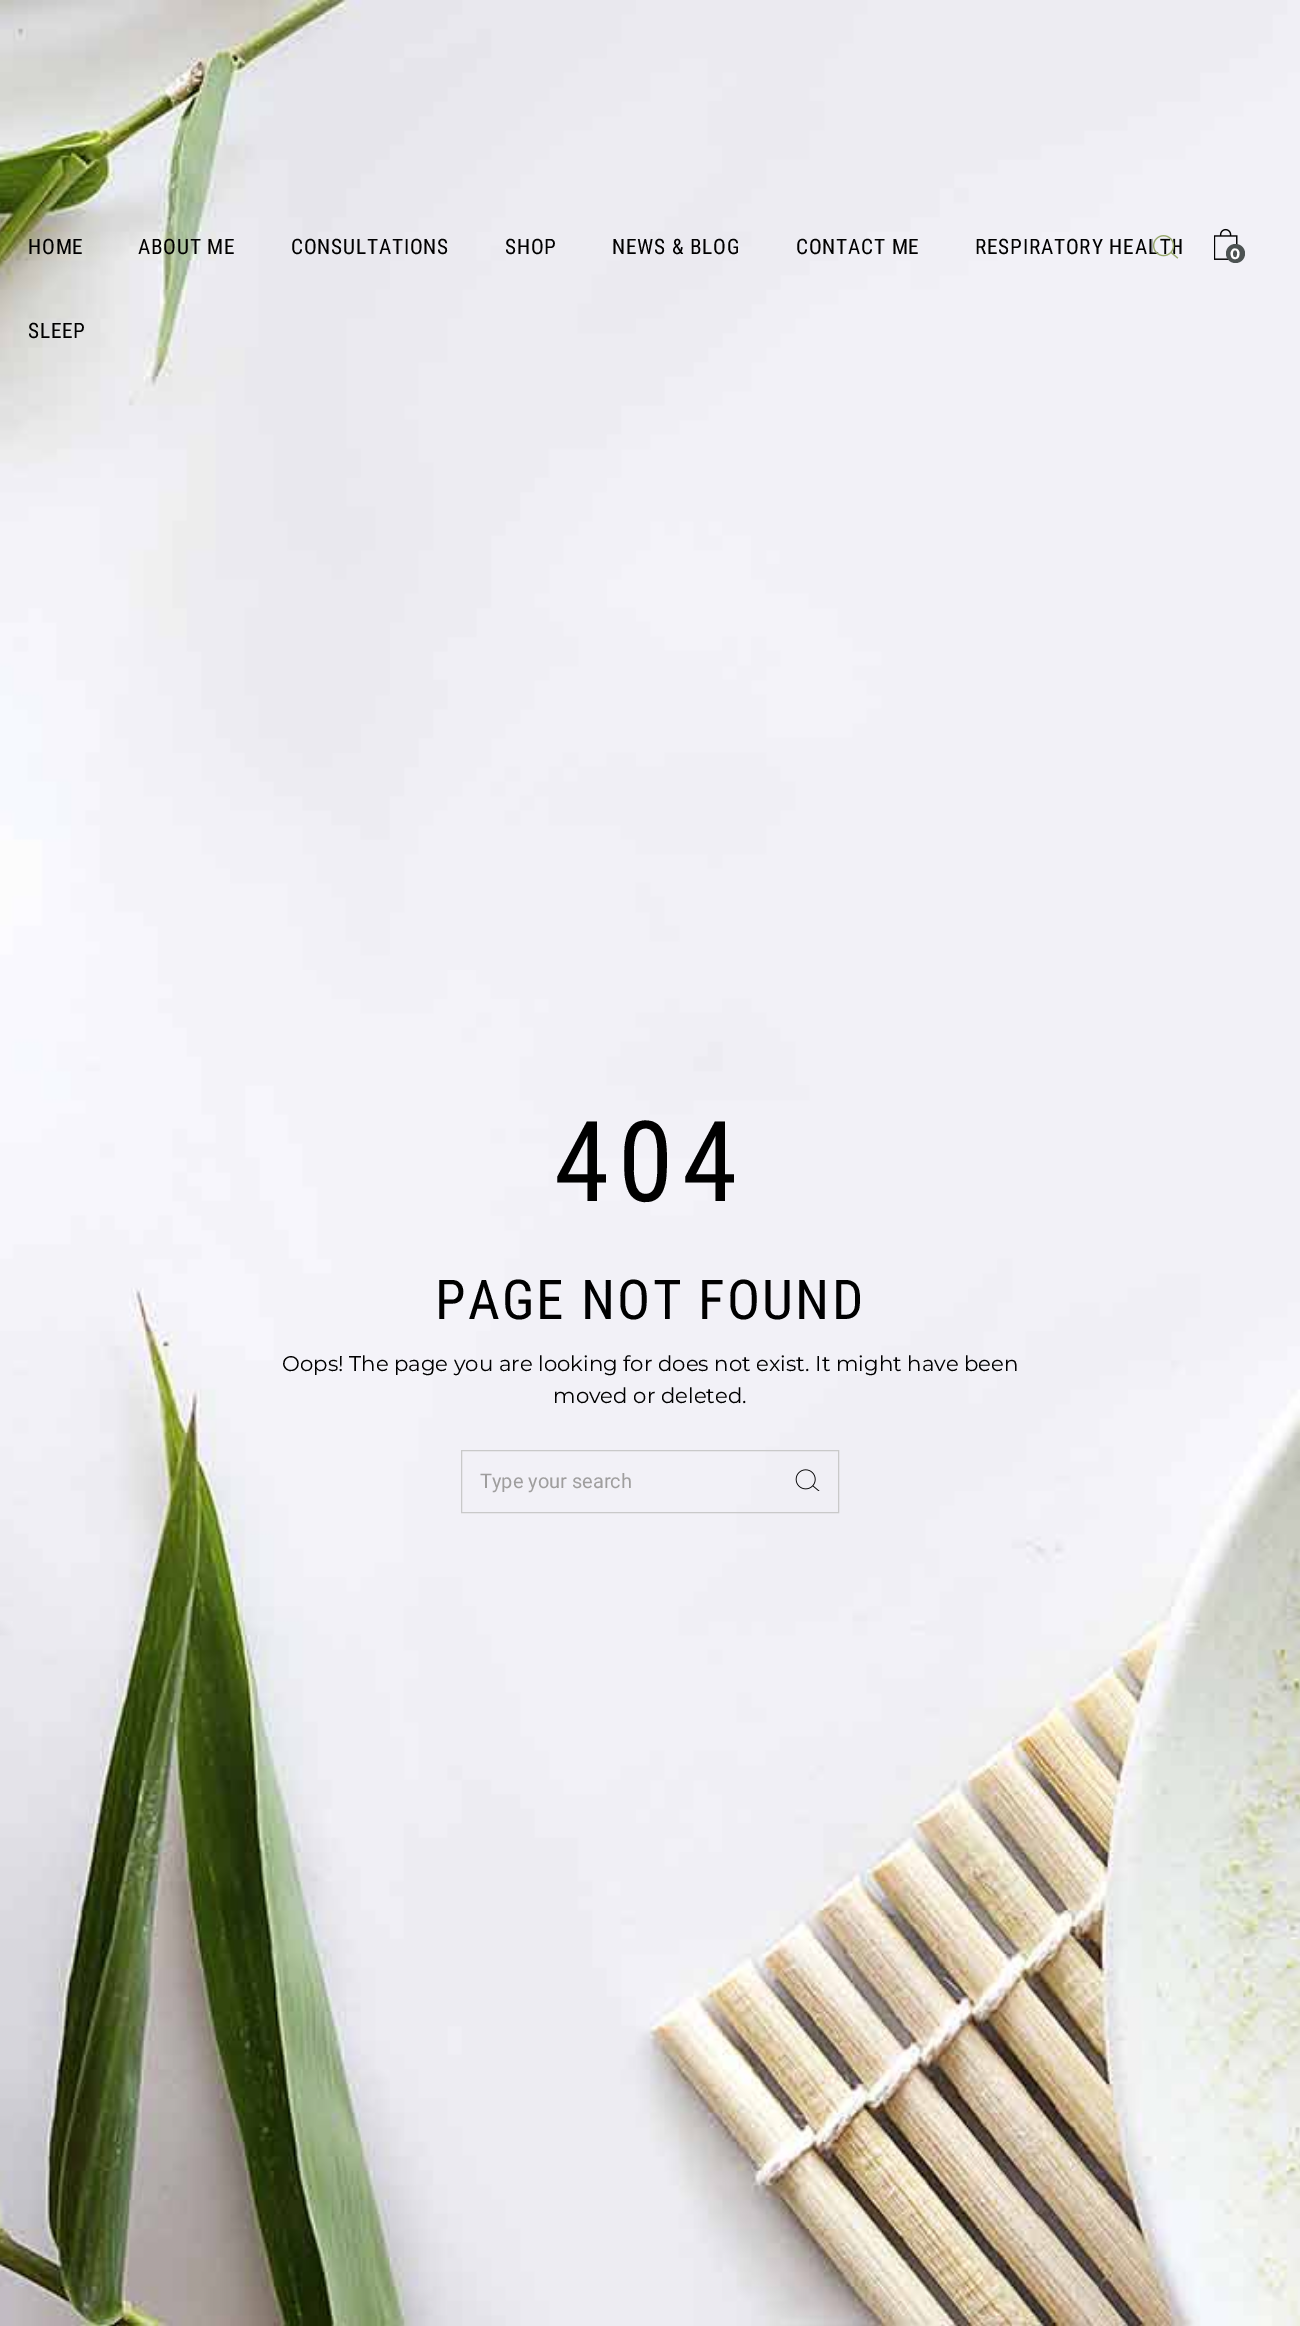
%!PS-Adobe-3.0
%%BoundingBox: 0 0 1300 2326
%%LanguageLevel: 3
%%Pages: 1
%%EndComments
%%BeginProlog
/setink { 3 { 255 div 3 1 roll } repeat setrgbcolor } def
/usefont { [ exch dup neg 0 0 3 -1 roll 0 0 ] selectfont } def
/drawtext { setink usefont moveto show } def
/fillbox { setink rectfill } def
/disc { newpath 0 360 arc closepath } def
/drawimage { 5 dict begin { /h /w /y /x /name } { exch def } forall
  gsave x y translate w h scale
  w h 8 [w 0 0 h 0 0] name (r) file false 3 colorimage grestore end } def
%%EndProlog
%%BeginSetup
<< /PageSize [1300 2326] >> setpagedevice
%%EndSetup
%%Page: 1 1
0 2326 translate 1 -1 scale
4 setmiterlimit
0 0 1300 2326 255 255 255 fillbox
(assets/img3.rgb) 0 0 1300 2326 drawimage
/RobotoCondensed-Regular 21.25 usefont
0 0 0 setink
28 254 moveto 0.8 0 (HOME) ashow
138 254 moveto 0.8 0 (ABOUT ME) ashow
291 254 moveto 0.8 0 (CONSULTATIONS) ashow
505 254 moveto 0.8 0 (SHOP) ashow
612 254 moveto 0.8 0 (NEWS & BLOG) ashow
796 254 moveto 0.8 0 (CONTACT ME) ashow
975 254 moveto 0.8 0 (RESPIRATORY HEALTH) ashow
28 338 moveto 0.8 0 (SLEEP) ashow
(assets/img1.rgb) 1152 235 27 24 drawimage
(assets/img2.rgb) 1214 228 24 32 drawimage
77 83 83 setink
1235.5 253.5 9.5 disc fill
(0) 1230 259 /Montserrat-Bold 15 255 255 255 drawtext
/RobotoCondensed-Regular 112 usefont
0 0 0 setink
554 1201 moveto 8.5 0 (404) ashow
/RobotoCondensed-Regular 55 usefont
435 1319 moveto 2.25 0 (PAGE NOT FOUND) ashow
(Oops! The page you are looking for does not exist. It might have been) 282 1371 /Montserrat-Regular 21.25 0 0 0 drawtext
(moved or deleted.) 553 1403 /Montserrat-Regular 21.25 0 0 0 drawtext
201 201 201 setink
461.5 1450.5 377 62 rectstroke
(Type your search) 480 1488 /Roboto-Regular 20 159 158 158 drawtext
(assets/img4.rgb) 795 1469 25 22 drawimage
showpage
%%EOF
